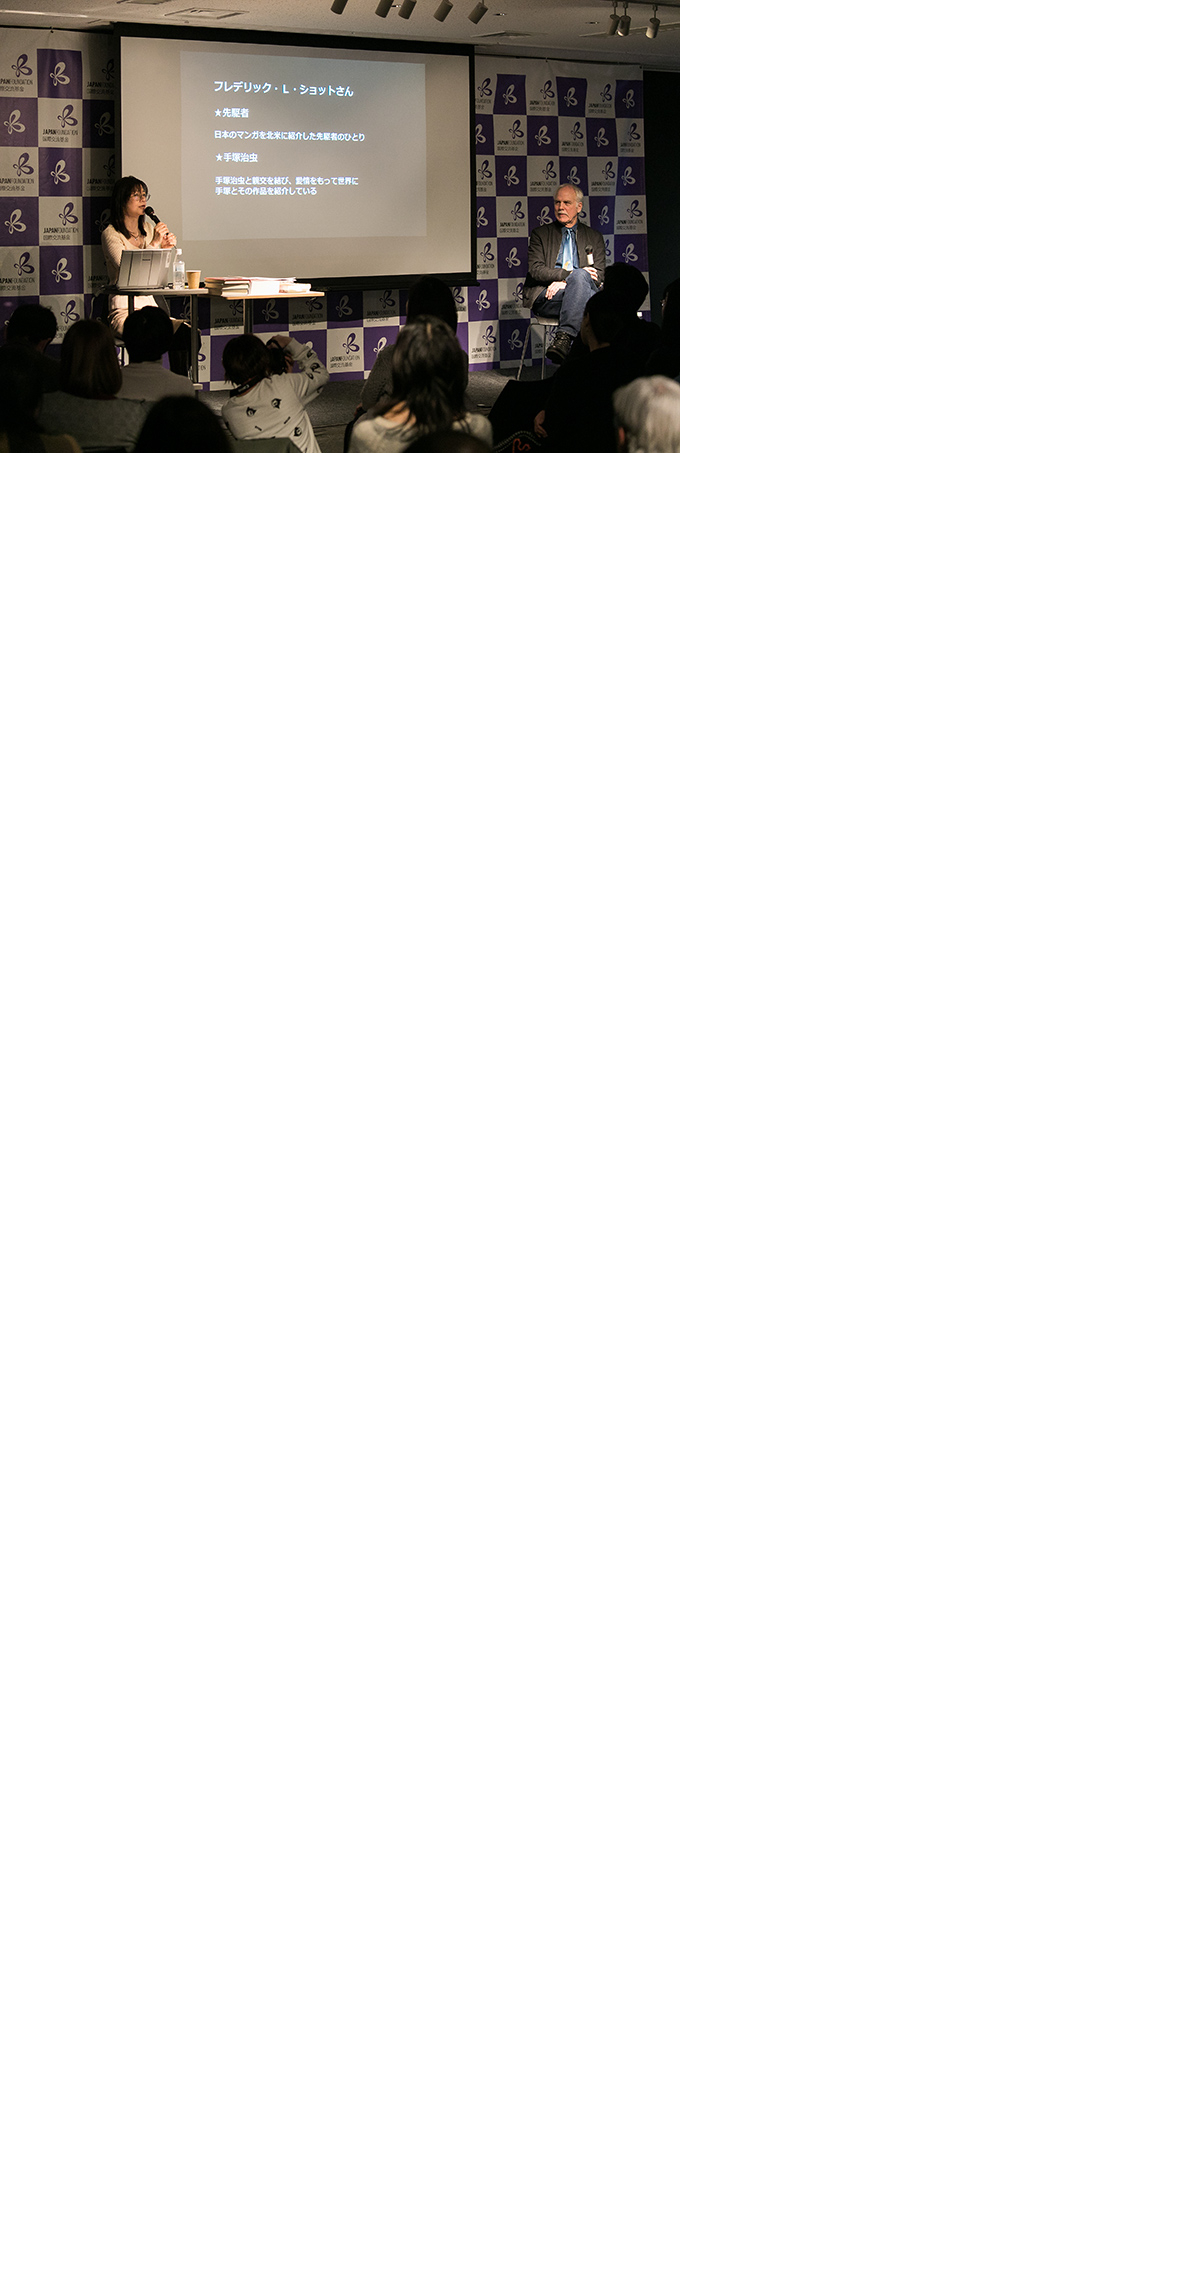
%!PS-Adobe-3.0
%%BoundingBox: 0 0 1187 2292
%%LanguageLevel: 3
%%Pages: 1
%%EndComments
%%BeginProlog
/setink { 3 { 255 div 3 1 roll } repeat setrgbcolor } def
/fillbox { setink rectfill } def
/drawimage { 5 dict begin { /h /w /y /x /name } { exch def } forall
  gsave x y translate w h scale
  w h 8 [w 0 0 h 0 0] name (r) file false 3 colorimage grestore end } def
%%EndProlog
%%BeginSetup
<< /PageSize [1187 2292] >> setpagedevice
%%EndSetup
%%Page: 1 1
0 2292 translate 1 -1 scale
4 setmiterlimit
0 0 1187 2292 255 255 255 fillbox
(assets/img1.rgb) 0 0 680 453 drawimage
showpage
%%EOF
